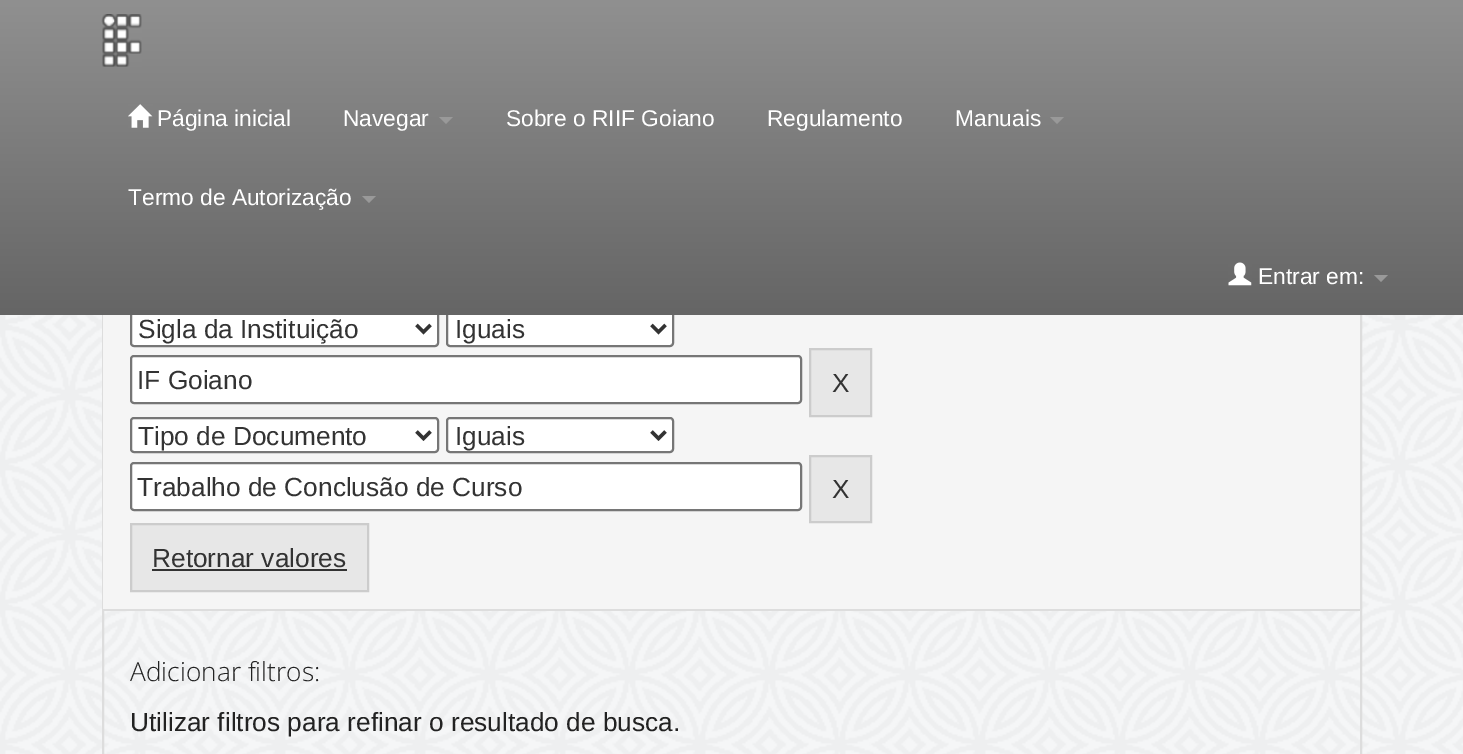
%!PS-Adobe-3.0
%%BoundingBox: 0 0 1463 754
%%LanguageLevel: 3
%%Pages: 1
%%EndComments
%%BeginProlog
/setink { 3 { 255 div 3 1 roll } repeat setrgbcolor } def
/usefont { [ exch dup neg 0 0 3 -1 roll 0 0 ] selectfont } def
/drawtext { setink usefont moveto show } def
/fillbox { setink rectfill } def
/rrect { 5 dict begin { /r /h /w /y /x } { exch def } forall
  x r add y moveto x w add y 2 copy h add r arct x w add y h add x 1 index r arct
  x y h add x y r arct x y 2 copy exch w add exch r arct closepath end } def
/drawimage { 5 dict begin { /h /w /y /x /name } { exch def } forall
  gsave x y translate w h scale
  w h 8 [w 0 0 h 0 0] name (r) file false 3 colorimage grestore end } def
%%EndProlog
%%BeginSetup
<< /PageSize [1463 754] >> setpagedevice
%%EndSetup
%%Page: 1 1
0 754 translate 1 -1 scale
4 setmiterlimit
0 0 1463 754 255 255 255 fillbox
(assets/img1.rgb) 0 315 1463 439 drawimage
221 221 221 setink
2 setlinewidth
103 -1 1258 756 rectstroke
103 315 1257 294 245 245 245 fillbox
255 255 255 setink
131 311 307 35 3 rrect gsave fill grestore
118 118 118 setink
stroke
255 255 255 setink
447 311 226 35 3 rrect gsave fill grestore
118 118 118 setink
stroke
gsave 0 0 moveto 1463 0 lineto 1463 315 lineto 0 315 lineto closepath clip newpath
<< /ShadingType 2 /ColorSpace /DeviceRGB /Coords [732 0 732 315] /Extend [true true] /Function << /FunctionType 2 /Domain [0 1] /C0 [0.565 0.565 0.565] /C1 [0.396 0.396 0.396] /N 1 >> >> shfill grestore
(assets/img2.rgb) 101 14 41 53 drawimage
(assets/img3.rgb) 128 104 25 24 drawimage
(Página inicial) 157 126 /LiberationSans-Regular 22.75 255 255 255 drawtext
(Navegar) 343 126 /LiberationSans-Regular 22.75 255 255 255 drawtext
153 153 153 setink
439 117 moveto 453 117 lineto 446 124 lineto closepath fill
(Sobre o RIIF Goiano) 506 126 /LiberationSans-Regular 22.75 255 255 255 drawtext
(Regulamento) 767 126 /LiberationSans-Regular 22.75 255 255 255 drawtext
(Manuais) 955 126 /LiberationSans-Regular 22.75 255 255 255 drawtext
153 153 153 setink
1050 117 moveto 1064 117 lineto 1057 124 lineto closepath fill
(Termo de Autorização) 128 205 /LiberationSans-Regular 22.75 255 255 255 drawtext
153 153 153 setink
362 196 moveto 376 196 lineto 369 203 lineto closepath fill
(assets/img4.rgb) 1228 262 24 24 drawimage
(Entrar em:) 1258 284 /LiberationSans-Regular 22.75 255 255 255 drawtext
153 153 153 setink
1374 275 moveto 1388 275 lineto 1381 282 lineto closepath fill
103 609 1257 2 221 221 221 fillbox
51 51 51 setink
3.5 setlinewidth
416.5 325 moveto 423.5 332 lineto 430.5 325 lineto stroke
(Sigla da Instituição) 138 338 /LiberationSans-Regular 26.25 51 51 51 drawtext
651.5 325 moveto 658.5 332 lineto 665.5 325 lineto stroke
(Iguais) 455 338 /LiberationSans-Regular 26.25 51 51 51 drawtext
255 255 255 setink
131 356 670 47 3 rrect gsave fill grestore
118 118 118 setink
2 setlinewidth
stroke
(IF Goiano) 137 389 /LiberationSans-Regular 26.25 51 51 51 drawtext
231 231 231 setink
810 349 moveto 871 349 lineto 871 416 lineto 810 416 lineto closepath gsave fill grestore
204 204 204 setink
stroke
(X) 832 392 /LiberationSans-Regular 26.25 51 51 51 drawtext
255 255 255 setink
131 418 307 34 3 rrect gsave fill grestore
118 118 118 setink
stroke
51 51 51 setink
3.5 setlinewidth
416.5 431.5 moveto 423.5 438.5 lineto 430.5 431.5 lineto stroke
(Tipo de Documento) 138 445 /LiberationSans-Regular 26.25 51 51 51 drawtext
255 255 255 setink
447 418 226 34 3 rrect gsave fill grestore
118 118 118 setink
2 setlinewidth
stroke
51 51 51 setink
3.5 setlinewidth
651.5 431.5 moveto 658.5 438.5 lineto 665.5 431.5 lineto stroke
(Iguais) 455 445 /LiberationSans-Regular 26.25 51 51 51 drawtext
255 255 255 setink
131 463 670 47 3 rrect gsave fill grestore
118 118 118 setink
2 setlinewidth
stroke
(Trabalho de Conclusão de Curso) 137 496 /LiberationSans-Regular 26.25 51 51 51 drawtext
231 231 231 setink
810 456 moveto 871 456 lineto 871 522 lineto 810 522 lineto closepath gsave fill grestore
204 204 204 setink
stroke
(X) 832 498 /LiberationSans-Regular 26.25 51 51 51 drawtext
231 231 231 setink
131 524 moveto 368 524 lineto 368 591 lineto 131 591 lineto closepath gsave fill grestore
204 204 204 setink
stroke
(Retornar valores) 152 567 /LiberationSans-Regular 26.25 51 51 51 drawtext
152 569 195 2 51 51 51 fillbox
(Adicionar filtros:) 130 681 /OpenSans-Light 26.25 34 34 34 drawtext
(Utilizar filtros para refinar o resultado de busca.) 130 731 /LiberationSans-Regular 26.25 34 34 34 drawtext
showpage
%%EOF
